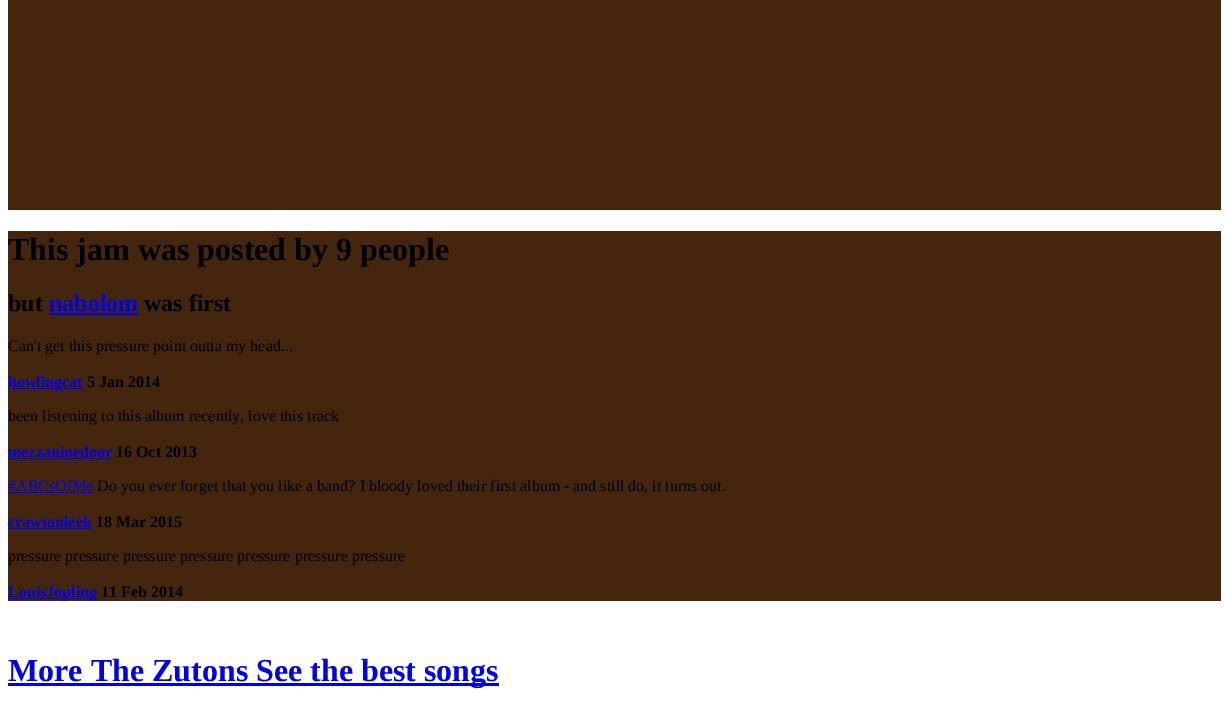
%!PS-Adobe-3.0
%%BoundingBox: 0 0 1229 717
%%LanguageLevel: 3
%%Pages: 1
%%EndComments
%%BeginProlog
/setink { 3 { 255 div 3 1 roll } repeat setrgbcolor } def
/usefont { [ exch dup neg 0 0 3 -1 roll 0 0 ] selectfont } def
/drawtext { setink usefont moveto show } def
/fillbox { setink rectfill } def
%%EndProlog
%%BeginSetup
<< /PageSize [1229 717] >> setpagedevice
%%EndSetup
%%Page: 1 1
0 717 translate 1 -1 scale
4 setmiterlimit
0 0 1229 717 255 255 255 fillbox
8 0 1213 210 68 38 14 fillbox
8 231 1213 370 68 38 14 fillbox
(This jam was posted by 9 people) 8 260 /LiberationSerif-Bold 32 0 0 0 drawtext
(but) 8 311 /LiberationSerif-Bold 24 0 0 0 drawtext
(nabolom) 49 311 /LiberationSerif-Bold 24 0 0 238 drawtext
49 313 89 2 0 0 238 fillbox
(was first) 144 311 /LiberationSerif-Bold 24 0 0 0 drawtext
(Can't get this pressure point outta my head...) 8 351 /LiberationSerif-Regular 16 0 0 0 drawtext
8 388 75 1 0 0 238 fillbox
(howlingcat) 8 387 /LiberationSerif-Bold 16 0 0 238 drawtext
(5 Jan 2014) 87 387 /LiberationSerif-Bold 16 0 0 0 drawtext
(been listening to this album recently, love this track) 8 421 /LiberationSerif-Regular 16 0 0 0 drawtext
(mezzaninedoor) 8 457 /LiberationSerif-Bold 16 0 0 238 drawtext
8 458 104 1 0 0 238 fillbox
(16 Oct 2013) 116 457 /LiberationSerif-Bold 16 0 0 0 drawtext
(#ABCsOfMe) 8 491 /LiberationSerif-Regular 16 0 0 238 drawtext
8 492 85 1 0 0 238 fillbox
(Do you ever forget that you like a band? I bloody loved their first album - and still do, it turns out.) 97 491 /LiberationSerif-Regular 16 0 0 0 drawtext
(crawtonleek) 8 527 /LiberationSerif-Bold 16 0 0 238 drawtext
8 528 84 1 0 0 238 fillbox
(18 Mar 2015) 96 527 /LiberationSerif-Bold 16 0 0 0 drawtext
(pressure pressure pressure pressure pressure pressure pressure) 8 561 /LiberationSerif-Regular 16 0 0 0 drawtext
8 598 89 1 0 0 238 fillbox
(LouisJopling) 8 597 /LiberationSerif-Bold 16 0 0 238 drawtext
(11 Feb 2014) 101 597 /LiberationSerif-Bold 16 0 0 0 drawtext
8 683 491 3 0 0 238 fillbox
(More The Zutons See the best songs) 8 681 /LiberationSerif-Bold 32 0 0 238 drawtext
showpage
%%EOF
